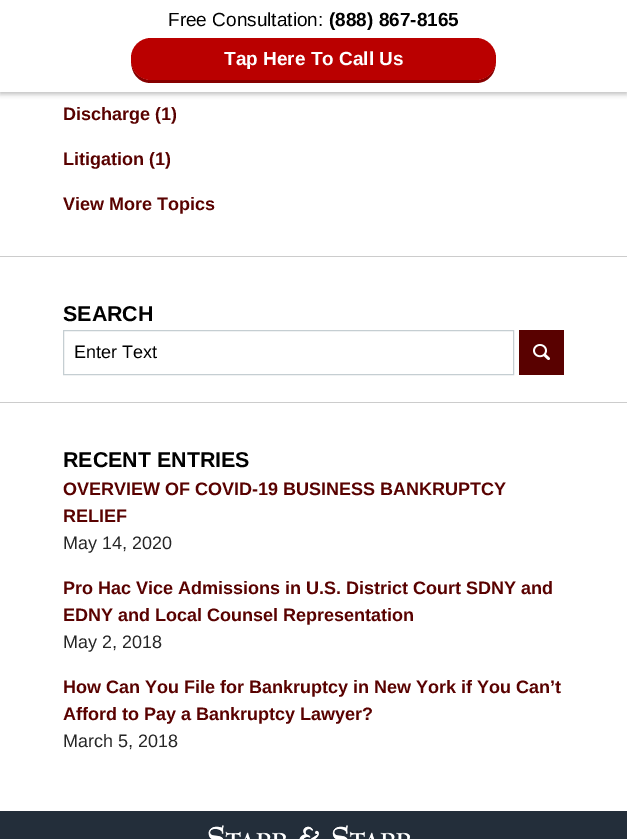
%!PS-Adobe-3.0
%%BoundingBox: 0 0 627 839
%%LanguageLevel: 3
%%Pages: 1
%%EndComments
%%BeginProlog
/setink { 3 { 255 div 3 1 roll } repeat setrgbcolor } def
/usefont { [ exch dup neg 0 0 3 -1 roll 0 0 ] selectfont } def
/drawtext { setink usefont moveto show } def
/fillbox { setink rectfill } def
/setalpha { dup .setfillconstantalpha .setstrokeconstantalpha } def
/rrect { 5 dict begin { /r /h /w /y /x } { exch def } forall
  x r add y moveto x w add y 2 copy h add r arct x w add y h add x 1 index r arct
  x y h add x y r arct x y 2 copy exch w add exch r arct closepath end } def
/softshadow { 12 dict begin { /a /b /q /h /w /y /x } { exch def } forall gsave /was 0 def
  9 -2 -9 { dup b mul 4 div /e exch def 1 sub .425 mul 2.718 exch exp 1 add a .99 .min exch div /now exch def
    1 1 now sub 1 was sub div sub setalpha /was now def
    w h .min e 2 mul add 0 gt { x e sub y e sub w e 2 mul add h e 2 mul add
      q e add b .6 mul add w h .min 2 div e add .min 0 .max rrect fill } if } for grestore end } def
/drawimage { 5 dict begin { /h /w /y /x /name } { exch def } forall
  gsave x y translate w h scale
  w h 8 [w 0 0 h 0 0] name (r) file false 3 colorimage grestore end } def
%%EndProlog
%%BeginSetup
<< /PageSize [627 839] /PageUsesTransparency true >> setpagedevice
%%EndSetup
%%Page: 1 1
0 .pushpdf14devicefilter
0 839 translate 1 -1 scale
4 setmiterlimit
0 0 627 839 255 255 255 fillbox
0 0 0 setink
0 2 627 92 0 2.5 0.26 softshadow
0 0 627 92 255 255 255 fillbox
(Free Consultation:) 168 26 /LiberationSans-Regular 19 0 0 0 drawtext
(\(888\) 867-8165) 329 26 /LiberationSans-Bold 19 0 0 0 drawtext
135 0 0 setink
131 60 moveto 131 73 138 83 151 83 curveto 476 83 lineto 489 83 496 73 496 60 curveto 496 71 487 80 476 80 curveto 151 80 lineto 140 80 131 71 131 60 curveto closepath fill
186 0 0 setink
131 38 365 42 20 rrect fill
(Tap Here To Call Us) 224 65 /LiberationSans-Bold 19 255 255 255 drawtext
(Discharge \(1\)) 63 120 /LiberationSans-Bold 18 89 1 0 drawtext
(Litigation \(1\)) 63 165 /LiberationSans-Bold 18 89 1 0 drawtext
(View More Topics) 63 210 /LiberationSans-Bold 18 89 1 0 drawtext
0 256 627 1 204 204 204 fillbox
(SEARCH) 63 321 /LiberationSans-Bold 21.4 0 0 0 drawtext
197 206 210 setink
63.5 330.5 450 44 rectstroke
(Enter Text) 74 358 /LiberationSans-Regular 18 0 0 0 drawtext
519 330 45 45 89 1 0 fillbox
(assets/img1.rgb) 533 344 17 16 drawimage
0 402 627 1 204 204 204 fillbox
(RECENT ENTRIES) 63 467 /LiberationSans-Bold 21.4 0 0 0 drawtext
(OVERVIEW OF COVID-19 BUSINESS BANKRUPTCY) 63 495 /LiberationSans-Bold 18 89 1 0 drawtext
(RELIEF) 63 522 /LiberationSans-Bold 18 89 1 0 drawtext
(May 14, 2020) 63 549 /LiberationSans-Regular 18 38 38 38 drawtext
(Pro Hac Vice Admissions in U.S. District Court SDNY and) 63 594 /LiberationSans-Bold 18 89 1 0 drawtext
(EDNY and Local Counsel Representation) 63 621 /LiberationSans-Bold 18 89 1 0 drawtext
(May 2, 2018) 63 648 /LiberationSans-Regular 18 38 38 38 drawtext
(How Can You File for Bankruptcy in New York if You Can’t) 63 693 /LiberationSans-Bold 18 89 1 0 drawtext
(Afford to Pay a Bankruptcy Lawyer?) 63 720 /LiberationSans-Bold 18 89 1 0 drawtext
(March 5, 2018) 63 747 /LiberationSans-Regular 18 38 38 38 drawtext
0 811 627 28 35 46 58 fillbox
(assets/img2.rgb) 208 825 202 14 drawimage
.poppdf14devicefilter showpage
%%EOF
